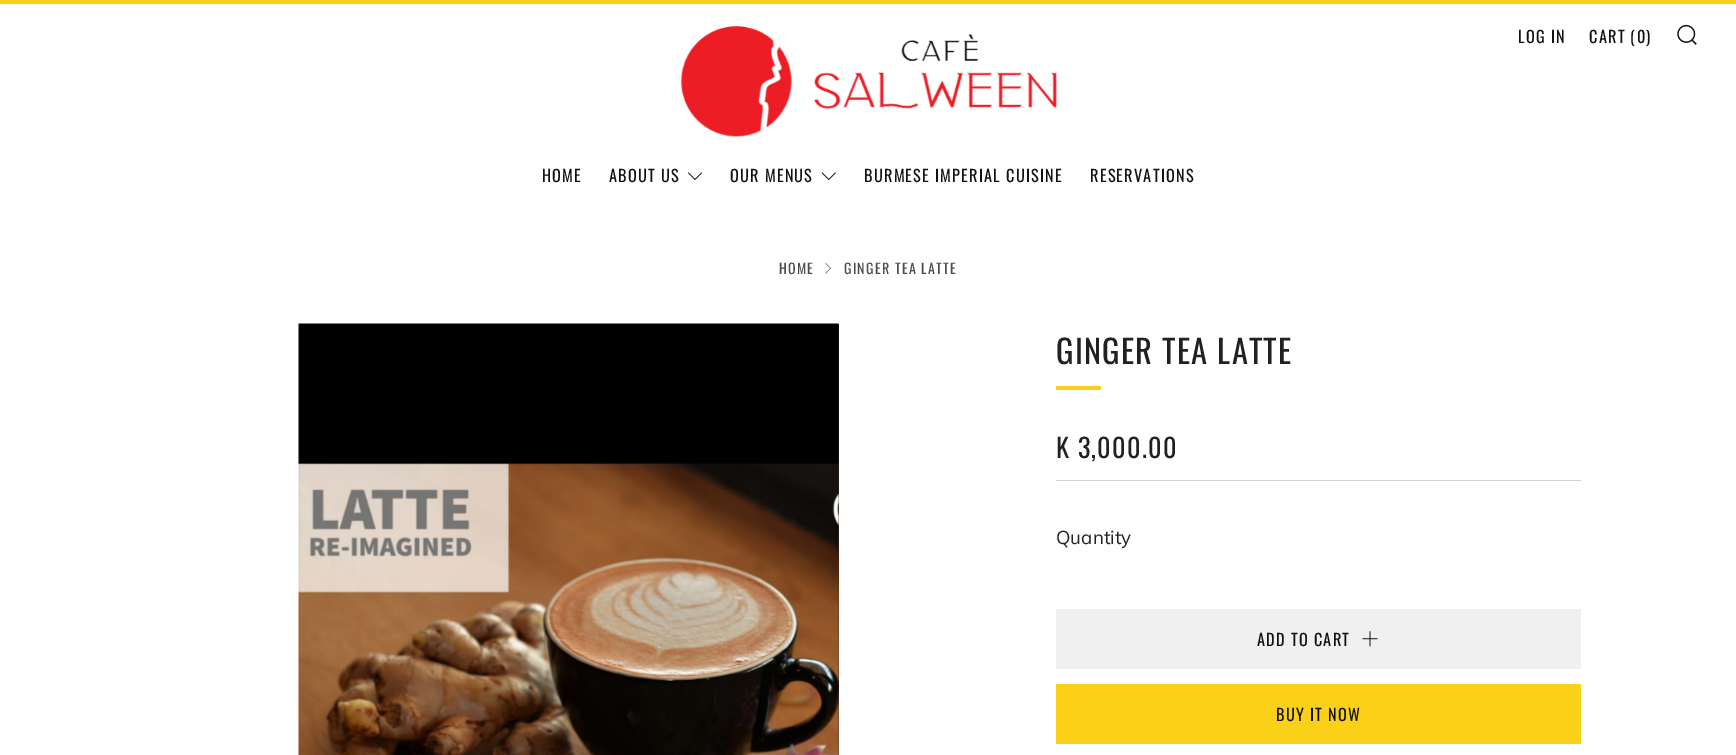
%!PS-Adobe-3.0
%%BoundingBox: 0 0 1736 755
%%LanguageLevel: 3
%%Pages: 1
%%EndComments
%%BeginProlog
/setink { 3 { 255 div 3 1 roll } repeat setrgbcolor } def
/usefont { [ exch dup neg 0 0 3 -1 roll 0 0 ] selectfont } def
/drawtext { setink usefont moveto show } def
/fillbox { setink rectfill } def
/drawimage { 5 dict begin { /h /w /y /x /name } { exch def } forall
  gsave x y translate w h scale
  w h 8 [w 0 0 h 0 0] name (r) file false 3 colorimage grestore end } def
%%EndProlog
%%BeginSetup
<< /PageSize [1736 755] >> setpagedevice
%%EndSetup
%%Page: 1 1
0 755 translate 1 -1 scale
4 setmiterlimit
0 0 1736 755 255 255 255 fillbox
0 0 1736 4 250 208 24 fillbox
(assets/img1.rgb) 680 26 377 111 drawimage
/Oswald-Regular 16.25 usefont
17 17 17 setink
1518 43 moveto 1.25 0 (LOG IN) ashow
1589 43 moveto 1.25 0 (CART \(0\)) ashow
(assets/img2.rgb) 1677 24 20 21 drawimage
542 182 moveto 1.25 0 (HOME) ashow
609 182 moveto 1.25 0 (ABOUT US) ashow
(assets/img3.rgb) 687 172 16 8 drawimage
730 182 moveto 1.25 0 (OUR MENUS) ashow
(assets/img4.rgb) 821 172 15 9 drawimage
864 182 moveto 1.25 0 (BURMESE IMPERIAL CUISINE) ashow
1090 182 moveto 1.25 0 (RESERVATIONS) ashow
/Oswald-Regular 14 usefont
77 77 77 setink
779 274 moveto 1.25 0 (HOME) ashow
(assets/img5.rgb) 825 263 6 11 drawimage
844 274 moveto 1.25 0 (GINGER TEA LATTE) ashow
299 324 540 431 73 50 38 fillbox
(assets/img6.rgb) 298 323 541 432 drawimage
/Oswald-Regular 32.5 usefont
33 33 33 setink
1056 364 moveto 1.25 0 (GINGER TEA LATTE) ashow
1056 386 45 4 250 208 24 fillbox
1056 480 525 1 211 211 211 fillbox
/Oswald-Regular 26.25 usefont
33 33 33 setink
1056 458 moveto 1.25 0 (K 3,000.00) ashow
(Quantity) 1056 544 /Muli-Regular 18.75 33 33 33 drawtext
1056 609 525 60 240 240 240 fillbox
/Oswald-Regular 16.25 usefont
17 17 17 setink
1257 646 moveto 1.25 0 (ADD TO CART) ashow
(assets/img7.rgb) 1362 631 16 16 drawimage
1056 684 525 60 250 208 24 fillbox
17 17 17 setink
1276 721 moveto 1.25 0 (BUY IT NOW) ashow
showpage
%%EOF
